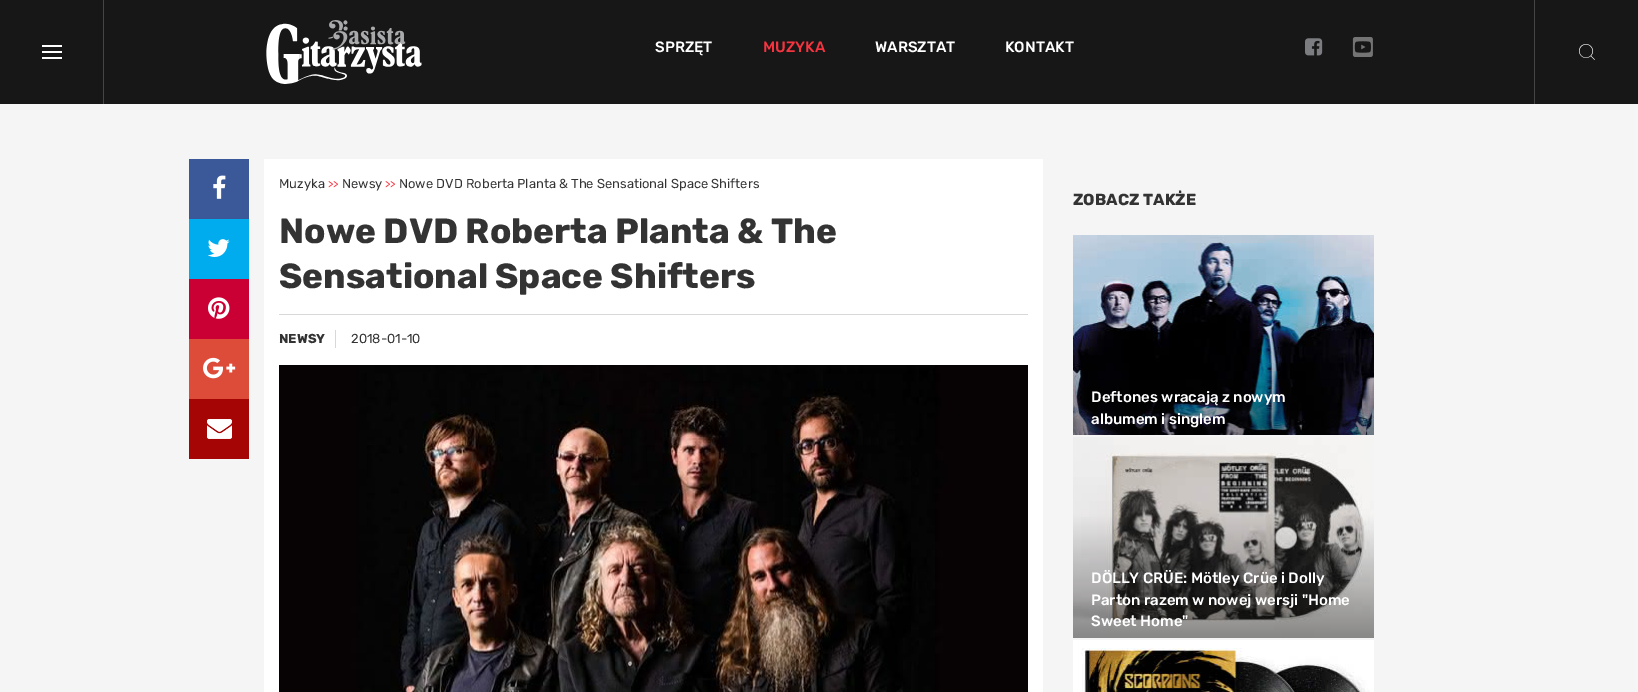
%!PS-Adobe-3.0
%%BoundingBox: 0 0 1638 692
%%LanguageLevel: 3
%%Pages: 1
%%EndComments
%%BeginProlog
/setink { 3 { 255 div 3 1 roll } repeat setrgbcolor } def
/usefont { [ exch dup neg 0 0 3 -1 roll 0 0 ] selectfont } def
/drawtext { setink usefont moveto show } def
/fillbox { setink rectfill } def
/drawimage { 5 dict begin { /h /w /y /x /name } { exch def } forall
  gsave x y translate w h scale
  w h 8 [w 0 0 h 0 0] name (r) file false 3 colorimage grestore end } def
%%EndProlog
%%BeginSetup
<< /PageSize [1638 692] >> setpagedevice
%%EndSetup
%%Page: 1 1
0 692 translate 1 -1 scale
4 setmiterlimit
0 0 1638 692 245 245 245 fillbox
0 0 1638 104 23 23 23 fillbox
103 0 1 104 69 69 69 fillbox
42 45 20 2 255 255 255 fillbox
42 51 20 2 255 255 255 fillbox
42 57 20 2 255 255 255 fillbox
(assets/img1.rgb) 266 20 156 64 drawimage
(SPRZĘT) 655 52 /Rubik-Medium 15 255 255 255 drawtext
(MUZYKA) 763 52 /Rubik-Medium 15 246 52 64 drawtext
(WARSZTAT) 875 52 /Rubik-Medium 15 255 255 255 drawtext
(KONTAKT) 1005 52 /Rubik-Medium 15 255 255 255 drawtext
(assets/img2.rgb) 1305 38 18 18 drawimage
(assets/img3.rgb) 1352 37 21 20 drawimage
1534 0 1 104 69 69 69 fillbox
(assets/img4.rgb) 1579 44 16 16 drawimage
189 159 60 60 59 89 152 fillbox
(assets/img5.rgb) 213 175 13 24 drawimage
189 219 60 60 0 172 237 fillbox
(assets/img6.rgb) 207 239 23 18 drawimage
189 279 60 60 202 0 52 fillbox
(assets/img7.rgb) 208 297 22 22 drawimage
189 339 60 60 221 75 57 fillbox
(assets/img8.rgb) 203 357 33 22 drawimage
189 399 60 60 166 5 5 fillbox
(assets/img9.rgb) 207 419 25 20 drawimage
(assets/img10.rgb) 207 419 25 20 drawimage
264 159 779 533 255 255 255 fillbox
(Muzyka) 279 188 /Rubik-Regular 13 51 51 51 drawtext
(>>) 328 188 /Rubik-Regular 11 246 52 64 drawtext
(Newsy) 342 188 /Rubik-Regular 13 51 51 51 drawtext
(>>) 385 188 /Rubik-Regular 11 246 52 64 drawtext
(Nowe DVD Roberta Planta & The Sensational Space Shifters) 399 188 /Rubik-Regular 13 51 51 51 drawtext
279 314 749 1 216 216 216 fillbox
(Nowe DVD Roberta Planta & The) 279 243 /Rubik-Bold 35 51 51 51 drawtext
(Sensational Space Shifters) 279 288 /Rubik-Bold 35 51 51 51 drawtext
335 330 1 18 216 216 216 fillbox
(NEWSY) 279 343 /Rubik-Bold 13 51 51 51 drawtext
(2018-01-10) 351 343 /Rubik-Regular 13 51 51 51 drawtext
(assets/img11.rgb) 279 365 749 327 drawimage
(ZOBACZ TAKŻE) 1073 205 /Rubik-Bold 16 51 51 51 drawtext
(assets/img12.rgb) 1073 235 301 200 drawimage
(Deftones wracają z nowym) 1091 402 /Rubik-Medium 15 255 255 255 drawtext
(albumem i singlem) 1091 424 /Rubik-Medium 15 255 255 255 drawtext
(assets/img13.rgb) 1073 437 301 201 drawimage
(DÖLLY CRÜE: Mötley Crüe i Dolly) 1091 583 /Rubik-Medium 15 255 255 255 drawtext
(Parton razem w nowej wersji "Home) 1091 605 /Rubik-Medium 15 255 255 255 drawtext
(Sweet Home") 1091 626 /Rubik-Medium 15 255 255 255 drawtext
(assets/img14.rgb) 1073 640 301 52 drawimage
showpage
%%EOF
